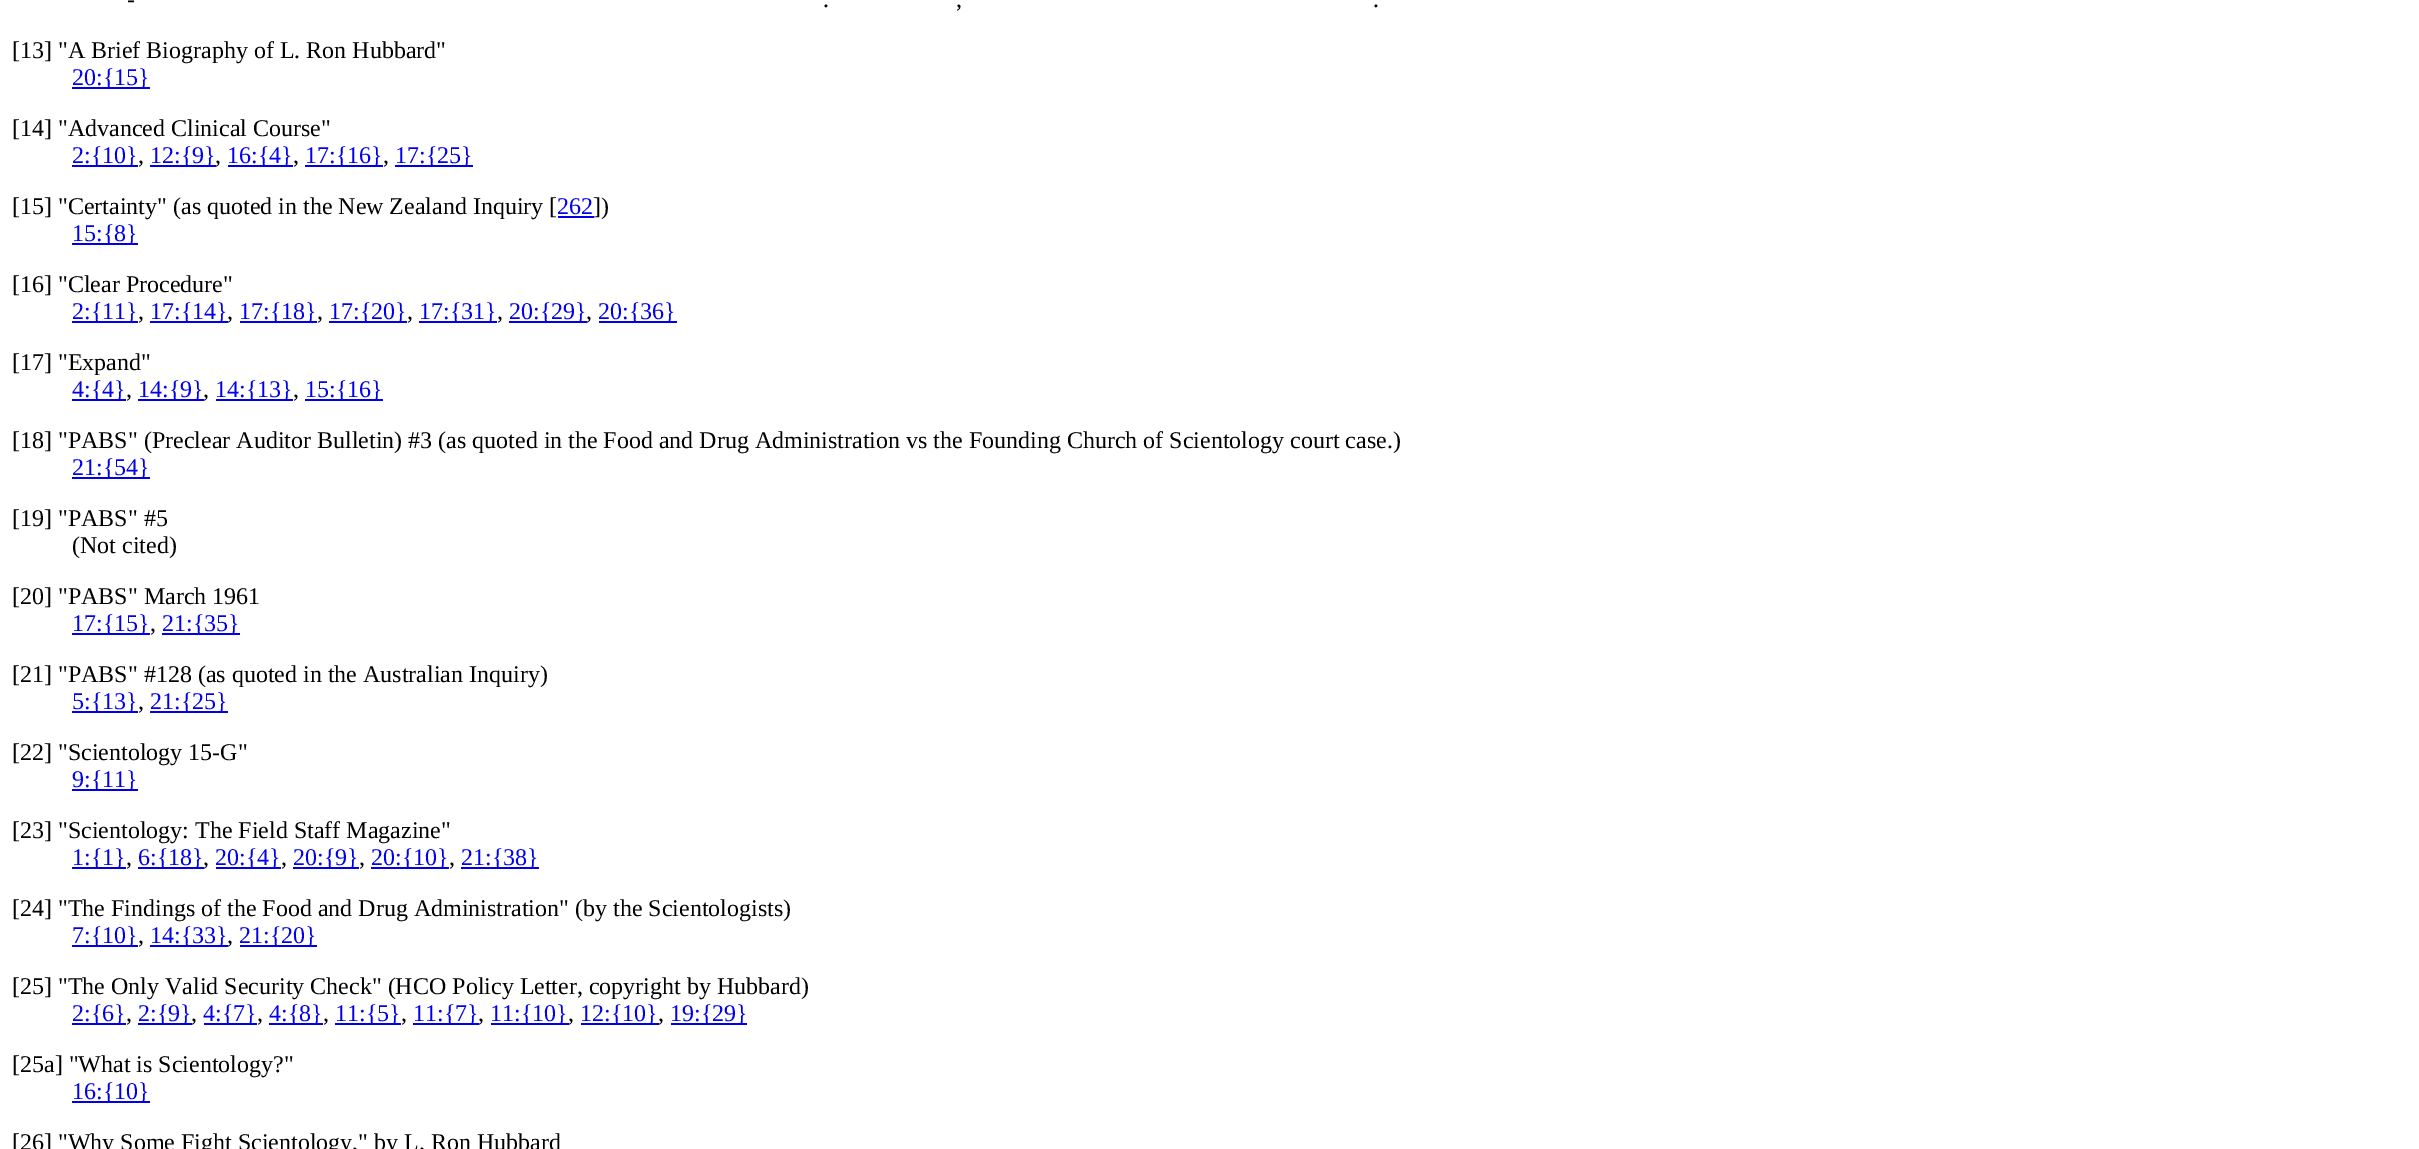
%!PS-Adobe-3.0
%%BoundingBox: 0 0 2419 1149
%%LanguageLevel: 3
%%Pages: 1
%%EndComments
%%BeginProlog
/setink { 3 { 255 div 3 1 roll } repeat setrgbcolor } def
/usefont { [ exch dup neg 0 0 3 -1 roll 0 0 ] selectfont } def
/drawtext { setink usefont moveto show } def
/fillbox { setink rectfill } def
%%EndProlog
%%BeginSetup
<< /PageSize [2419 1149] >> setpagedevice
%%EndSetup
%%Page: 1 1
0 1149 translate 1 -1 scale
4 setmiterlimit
0 0 2419 1149 255 255 255 fillbox
(-) 127 7 /LiberationSerif-Regular 24 0 0 0 drawtext
(.) 823 7 /LiberationSerif-Regular 24 0 0 0 drawtext
(,) 956 7 /LiberationSerif-Regular 24 0 0 0 drawtext
(.) 1373 7 /LiberationSerif-Regular 24 0 0 0 drawtext
([13] "A Brief Biography of L. Ron Hubbard") 12 58 /LiberationSerif-Regular 24 0 0 0 drawtext
72 87 78 2 0 0 238 fillbox
(20:{15}) 72 85 /LiberationSerif-Regular 24 0 0 238 drawtext
([14] "Advanced Clinical Course") 12 136 /LiberationSerif-Regular 24 0 0 0 drawtext
72 165 66 2 0 0 238 fillbox
(2:{10}) 72 163 /LiberationSerif-Regular 24 0 0 238 drawtext
(,) 138 163 /LiberationSerif-Regular 24 0 0 0 drawtext
150 165 66 2 0 0 238 fillbox
(12:{9}) 150 163 /LiberationSerif-Regular 24 0 0 238 drawtext
(,) 215 163 /LiberationSerif-Regular 24 0 0 0 drawtext
228 165 65 2 0 0 238 fillbox
(16:{4}) 227 163 /LiberationSerif-Regular 24 0 0 238 drawtext
(,) 293 163 /LiberationSerif-Regular 24 0 0 0 drawtext
305 165 78 2 0 0 238 fillbox
(17:{16}) 305 163 /LiberationSerif-Regular 24 0 0 238 drawtext
(,) 383 163 /LiberationSerif-Regular 24 0 0 0 drawtext
395 165 78 2 0 0 238 fillbox
(17:{25}) 395 163 /LiberationSerif-Regular 24 0 0 238 drawtext
([15] "Certainty" \(as quoted in the New Zealand Inquiry [) 12 214 /LiberationSerif-Regular 24 0 0 0 drawtext
(262) 557 214 /LiberationSerif-Regular 24 0 0 238 drawtext
558 216 36 2 0 0 238 fillbox
(]\)) 593 214 /LiberationSerif-Regular 24 0 0 0 drawtext
72 243 66 2 0 0 238 fillbox
(15:{8}) 72 241 /LiberationSerif-Regular 24 0 0 238 drawtext
([16] "Clear Procedure") 12 292 /LiberationSerif-Regular 24 0 0 0 drawtext
72 321 66 2 0 0 238 fillbox
(2:{11}) 72 319 /LiberationSerif-Regular 24 0 0 238 drawtext
(,) 138 319 /LiberationSerif-Regular 24 0 0 0 drawtext
150 321 78 2 0 0 238 fillbox
(17:{14}) 150 319 /LiberationSerif-Regular 24 0 0 238 drawtext
(,) 227 319 /LiberationSerif-Regular 24 0 0 0 drawtext
240 321 77 2 0 0 238 fillbox
(17:{18}) 239 319 /LiberationSerif-Regular 24 0 0 238 drawtext
(,) 317 319 /LiberationSerif-Regular 24 0 0 0 drawtext
329 321 78 2 0 0 238 fillbox
(17:{20}) 329 319 /LiberationSerif-Regular 24 0 0 238 drawtext
(,) 407 319 /LiberationSerif-Regular 24 0 0 0 drawtext
419 321 78 2 0 0 238 fillbox
(17:{31}) 419 319 /LiberationSerif-Regular 24 0 0 238 drawtext
(,) 497 319 /LiberationSerif-Regular 24 0 0 0 drawtext
509 321 78 2 0 0 238 fillbox
(20:{29}) 509 319 /LiberationSerif-Regular 24 0 0 238 drawtext
(,) 586 319 /LiberationSerif-Regular 24 0 0 0 drawtext
599 321 78 2 0 0 238 fillbox
(20:{36}) 598 319 /LiberationSerif-Regular 24 0 0 238 drawtext
([17] "Expand") 12 370 /LiberationSerif-Regular 24 0 0 0 drawtext
72 399 54 2 0 0 238 fillbox
(4:{4}) 72 397 /LiberationSerif-Regular 24 0 0 238 drawtext
(,) 126 397 /LiberationSerif-Regular 24 0 0 0 drawtext
138 399 66 2 0 0 238 fillbox
(14:{9}) 138 397 /LiberationSerif-Regular 24 0 0 238 drawtext
(,) 203 397 /LiberationSerif-Regular 24 0 0 0 drawtext
216 399 77 2 0 0 238 fillbox
(14:{13}) 215 397 /LiberationSerif-Regular 24 0 0 238 drawtext
(,) 293 397 /LiberationSerif-Regular 24 0 0 0 drawtext
305 399 78 2 0 0 238 fillbox
(15:{16}) 305 397 /LiberationSerif-Regular 24 0 0 238 drawtext
([18] "PABS" \(Preclear Auditor Bulletin\) #3 \(as quoted in the Food and Drug Administration vs the Founding Church of Scientology court case.\)) 12 448 /LiberationSerif-Regular 24 0 0 0 drawtext
72 477 78 2 0 0 238 fillbox
(21:{54}) 72 475 /LiberationSerif-Regular 24 0 0 238 drawtext
([19] "PABS" #5) 12 526 /LiberationSerif-Regular 24 0 0 0 drawtext
(\(Not cited\)) 72 553 /LiberationSerif-Regular 24 0 0 0 drawtext
([20] "PABS" March 1961) 12 604 /LiberationSerif-Regular 24 0 0 0 drawtext
72 633 78 2 0 0 238 fillbox
(17:{15}) 72 631 /LiberationSerif-Regular 24 0 0 238 drawtext
(,) 150 631 /LiberationSerif-Regular 24 0 0 0 drawtext
162 633 78 2 0 0 238 fillbox
(21:{35}) 162 631 /LiberationSerif-Regular 24 0 0 238 drawtext
([21] "PABS" #128 \(as quoted in the Australian Inquiry\)) 12 682 /LiberationSerif-Regular 24 0 0 0 drawtext
72 711 66 2 0 0 238 fillbox
(5:{13}) 72 709 /LiberationSerif-Regular 24 0 0 238 drawtext
(,) 138 709 /LiberationSerif-Regular 24 0 0 0 drawtext
150 711 78 2 0 0 238 fillbox
(21:{25}) 150 709 /LiberationSerif-Regular 24 0 0 238 drawtext
([22] "Scientology 15-G") 12 760 /LiberationSerif-Regular 24 0 0 0 drawtext
72 789 66 2 0 0 238 fillbox
(9:{11}) 72 787 /LiberationSerif-Regular 24 0 0 238 drawtext
([23] "Scientology: The Field Staff Magazine") 12 838 /LiberationSerif-Regular 24 0 0 0 drawtext
72 867 54 2 0 0 238 fillbox
(1:{1}) 72 865 /LiberationSerif-Regular 24 0 0 238 drawtext
(,) 126 865 /LiberationSerif-Regular 24 0 0 0 drawtext
138 867 66 2 0 0 238 fillbox
(6:{18}) 138 865 /LiberationSerif-Regular 24 0 0 238 drawtext
(,) 203 865 /LiberationSerif-Regular 24 0 0 0 drawtext
216 867 65 2 0 0 238 fillbox
(20:{4}) 215 865 /LiberationSerif-Regular 24 0 0 238 drawtext
(,) 281 865 /LiberationSerif-Regular 24 0 0 0 drawtext
293 867 66 2 0 0 238 fillbox
(20:{9}) 293 865 /LiberationSerif-Regular 24 0 0 238 drawtext
(,) 359 865 /LiberationSerif-Regular 24 0 0 0 drawtext
371 867 78 2 0 0 238 fillbox
(20:{10}) 371 865 /LiberationSerif-Regular 24 0 0 238 drawtext
(,) 449 865 /LiberationSerif-Regular 24 0 0 0 drawtext
461 867 78 2 0 0 238 fillbox
(21:{38}) 461 865 /LiberationSerif-Regular 24 0 0 238 drawtext
([24] "The Findings of the Food and Drug Administration" \(by the Scientologists\)) 12 916 /LiberationSerif-Regular 24 0 0 0 drawtext
72 945 66 2 0 0 238 fillbox
(7:{10}) 72 943 /LiberationSerif-Regular 24 0 0 238 drawtext
(,) 138 943 /LiberationSerif-Regular 24 0 0 0 drawtext
150 945 78 2 0 0 238 fillbox
(14:{33}) 150 943 /LiberationSerif-Regular 24 0 0 238 drawtext
(,) 227 943 /LiberationSerif-Regular 24 0 0 0 drawtext
240 945 77 2 0 0 238 fillbox
(21:{20}) 239 943 /LiberationSerif-Regular 24 0 0 238 drawtext
([25] "The Only Valid Security Check" \(HCO Policy Letter, copyright by Hubbard\)) 12 994 /LiberationSerif-Regular 24 0 0 0 drawtext
72 1023 54 2 0 0 238 fillbox
(2:{6}) 72 1021 /LiberationSerif-Regular 24 0 0 238 drawtext
(,) 126 1021 /LiberationSerif-Regular 24 0 0 0 drawtext
138 1023 54 2 0 0 238 fillbox
(2:{9}) 138 1021 /LiberationSerif-Regular 24 0 0 238 drawtext
(,) 191 1021 /LiberationSerif-Regular 24 0 0 0 drawtext
204 1023 53 2 0 0 238 fillbox
(4:{7}) 203 1021 /LiberationSerif-Regular 24 0 0 238 drawtext
(,) 257 1021 /LiberationSerif-Regular 24 0 0 0 drawtext
269 1023 54 2 0 0 238 fillbox
(4:{8}) 269 1021 /LiberationSerif-Regular 24 0 0 238 drawtext
(,) 323 1021 /LiberationSerif-Regular 24 0 0 0 drawtext
335 1023 66 2 0 0 238 fillbox
(11:{5}) 335 1021 /LiberationSerif-Regular 24 0 0 238 drawtext
(,) 401 1021 /LiberationSerif-Regular 24 0 0 0 drawtext
413 1023 66 2 0 0 238 fillbox
(11:{7}) 413 1021 /LiberationSerif-Regular 24 0 0 238 drawtext
(,) 478 1021 /LiberationSerif-Regular 24 0 0 0 drawtext
491 1023 78 2 0 0 238 fillbox
(11:{10}) 490 1021 /LiberationSerif-Regular 24 0 0 238 drawtext
(,) 568 1021 /LiberationSerif-Regular 24 0 0 0 drawtext
581 1023 78 2 0 0 238 fillbox
(12:{10}) 580 1021 /LiberationSerif-Regular 24 0 0 238 drawtext
(,) 658 1021 /LiberationSerif-Regular 24 0 0 0 drawtext
671 1023 76 2 0 0 238 fillbox
(19:{29}) 670 1021 /LiberationSerif-Regular 24 0 0 238 drawtext
([25a] "What is Scientology?") 12 1072 /LiberationSerif-Regular 24 0 0 0 drawtext
72 1101 78 2 0 0 238 fillbox
(16:{10}) 72 1099 /LiberationSerif-Regular 24 0 0 238 drawtext
([26] "Why Some Fight Scientology," by L. Ron Hubbard) 12 1150 /LiberationSerif-Regular 24 0 0 0 drawtext
showpage
%%EOF
